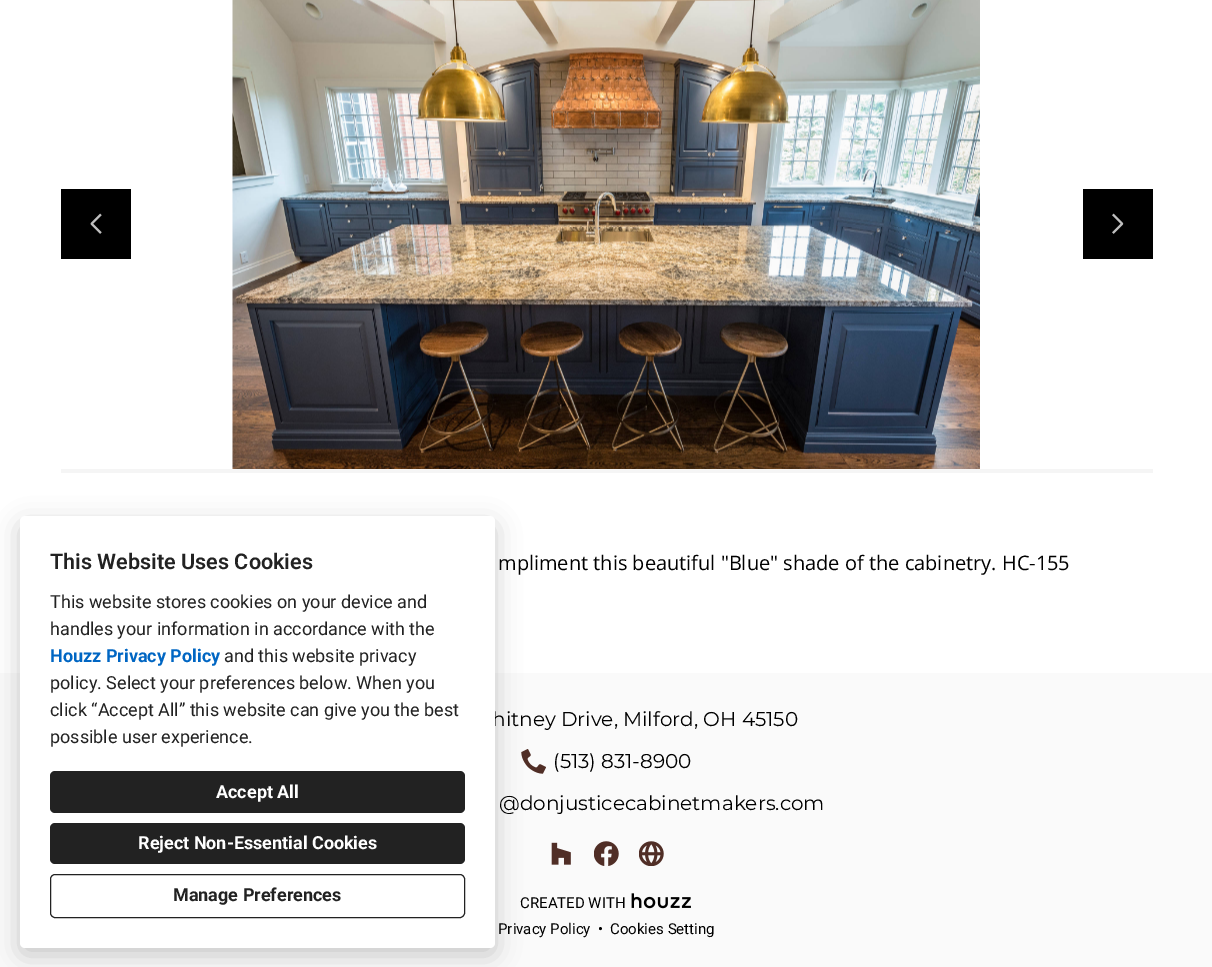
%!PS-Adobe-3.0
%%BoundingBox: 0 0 1212 967
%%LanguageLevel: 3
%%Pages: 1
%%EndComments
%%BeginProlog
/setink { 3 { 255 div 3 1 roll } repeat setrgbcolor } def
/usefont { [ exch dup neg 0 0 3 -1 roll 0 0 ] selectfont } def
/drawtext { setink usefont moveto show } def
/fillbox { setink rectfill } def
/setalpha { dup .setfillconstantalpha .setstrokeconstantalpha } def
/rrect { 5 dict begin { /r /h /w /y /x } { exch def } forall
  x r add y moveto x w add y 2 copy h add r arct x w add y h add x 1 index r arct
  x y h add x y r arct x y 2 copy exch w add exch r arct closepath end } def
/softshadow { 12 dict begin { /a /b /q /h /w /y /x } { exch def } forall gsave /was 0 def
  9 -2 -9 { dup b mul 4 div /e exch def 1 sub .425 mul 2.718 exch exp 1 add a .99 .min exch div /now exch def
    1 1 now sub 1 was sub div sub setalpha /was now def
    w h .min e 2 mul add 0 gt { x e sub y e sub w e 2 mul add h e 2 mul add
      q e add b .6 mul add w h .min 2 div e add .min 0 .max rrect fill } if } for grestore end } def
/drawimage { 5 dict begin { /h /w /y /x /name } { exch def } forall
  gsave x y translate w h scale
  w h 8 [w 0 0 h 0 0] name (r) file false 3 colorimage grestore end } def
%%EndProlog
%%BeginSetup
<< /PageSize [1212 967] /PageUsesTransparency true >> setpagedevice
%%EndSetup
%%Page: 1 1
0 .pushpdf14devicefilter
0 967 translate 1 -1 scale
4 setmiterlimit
0 0 1212 967 255 255 255 fillbox
0 673 1212 294 250 250 250 fillbox
(assets/img4.rgb) 521 749 25 25 drawimage
0 0 0 setink
20 524 475 431 5 12.5 0.2 softshadow
(hitney Drive, Milford, OH 45150) 492 726 /Montserrat-Regular 20 0 0 0 drawtext
255 255 255 setink
20 516 475 432 5 rrect fill
(This Website Uses Cookies) 50 569 /Roboto-SemiBold 21.6 34 34 34 drawtext
(This website stores cookies on your device and) 50 608 /Roboto-Regular 18 34 34 34 drawtext
(handles your information in accordance with the) 50 635 /Roboto-Regular 18 34 34 34 drawtext
(Houzz Privacy Policy) 50 662 /Roboto-Bold 18 0 102 195 drawtext
(and this website privacy) 224 662 /Roboto-Regular 18 34 34 34 drawtext
(policy. Select your preferences below. When you) 50 689 /Roboto-Regular 18 34 34 34 drawtext
(click “Accept All” this website can give you the best) 50 716 /Roboto-Regular 18 34 34 34 drawtext
(possible user experience.) 50 743 /Roboto-Regular 18 34 34 34 drawtext
50 771 415 42 5 rrect fill
(Accept All) 216 798 /Roboto-Bold 18 255 255 255 drawtext
34 34 34 setink
50 823 415 41 5 rrect fill
(Reject Non-Essential Cookies) 138 849 /Roboto-Bold 18 255 255 255 drawtext
34 34 34 setink
50.5 874.5 414 43 4.5 rrect stroke
(Manage Preferences) 173 901 /Roboto-Bold 18 34 34 34 drawtext
61 189 70 70 0 0 0 fillbox
(assets/img1.rgb) 90 213 12 21 drawimage
(assets/img2.rgb) 232 0 748 469 drawimage
1083 189 70 70 0 0 0 fillbox
(assets/img3.rgb) 1112 213 12 21 drawimage
61 469 1092 4 245 245 245 fillbox
(mpliment this beautiful "Blue" shade of the cabinetry. HC-155) 498 570 /OpenSans-Regular 20 0 0 0 drawtext
(\(513\) 831-8900) 553 768 /Montserrat-Regular 20 0 0 0 drawtext
(@donjusticecabinetmakers.com) 499 810 /Montserrat-Regular 20 0 0 0 drawtext
(assets/img5.rgb) 551 842 20 23 drawimage
(assets/img6.rgb) 594 841 25 25 drawimage
(assets/img7.rgb) 639 841 25 25 drawimage
(CREATED WITH) 520 908 /Roboto-Regular 15 0 0 0 drawtext
(assets/img8.rgb) 631 893 60 16 drawimage
(Privacy Policy) 498 934 /Roboto-Regular 15 0 0 0 drawtext
(•) 598 934 /Roboto-Regular 15 0 0 0 drawtext
(Cookies Setting) 610 934 /Roboto-Regular 15 0 0 0 drawtext
.poppdf14devicefilter showpage
%%EOF
